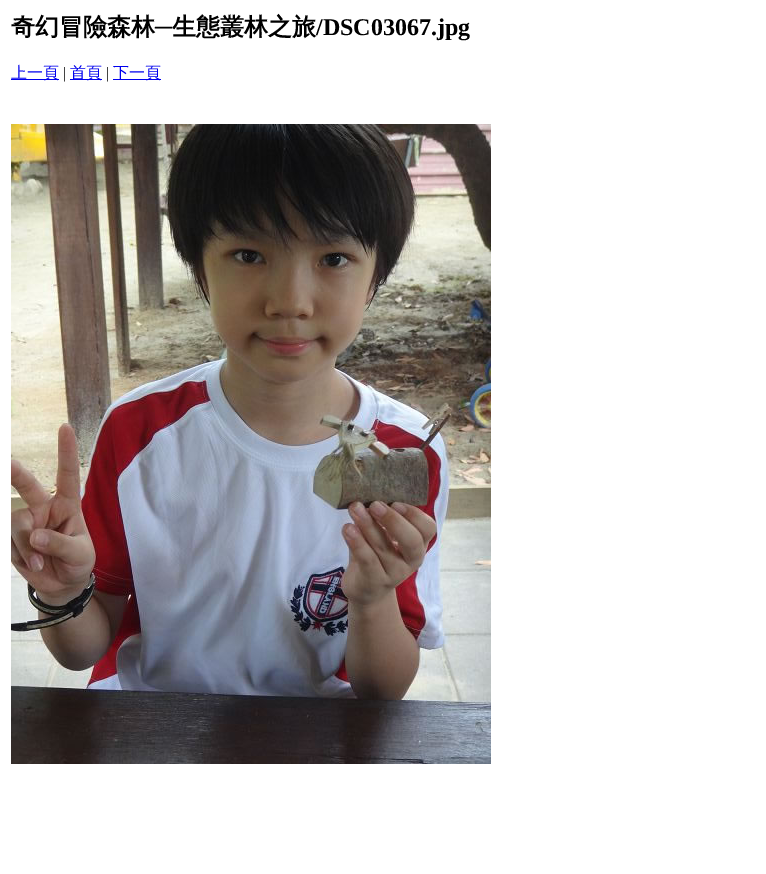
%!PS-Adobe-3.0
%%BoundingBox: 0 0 766 874
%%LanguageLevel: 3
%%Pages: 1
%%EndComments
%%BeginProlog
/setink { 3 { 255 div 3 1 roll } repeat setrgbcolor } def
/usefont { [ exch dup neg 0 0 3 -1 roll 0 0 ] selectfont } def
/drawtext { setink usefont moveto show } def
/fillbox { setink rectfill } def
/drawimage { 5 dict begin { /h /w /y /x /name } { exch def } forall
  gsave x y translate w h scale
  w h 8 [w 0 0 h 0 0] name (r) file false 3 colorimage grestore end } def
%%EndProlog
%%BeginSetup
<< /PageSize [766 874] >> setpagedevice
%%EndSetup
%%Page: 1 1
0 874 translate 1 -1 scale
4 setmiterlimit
0 0 766 874 255 255 255 fillbox
(奇幻冒險森林) 11 35 /WenQuanYiZenHei-Bold 24 0 0 0 drawtext
(─) 155 35 /LiberationSerif-Bold 24 0 0 0 drawtext
(生態叢林之旅) 172 35 /WenQuanYiZenHei-Bold 24 0 0 0 drawtext
(/DSC03067.jpg) 316 35 /LiberationSerif-Bold 24 0 0 0 drawtext
11 79 48 1 0 0 238 fillbox
(上一頁) 11 78 /WenQuanYiZenHei-Medium 16 0 0 238 drawtext
(|) 63 78 /LiberationSerif-Regular 16 0 0 0 drawtext
70 79 32 1 0 0 238 fillbox
(首頁) 70 78 /WenQuanYiZenHei-Medium 16 0 0 238 drawtext
(|) 106 78 /LiberationSerif-Regular 16 0 0 0 drawtext
113 79 48 1 0 0 238 fillbox
(下一頁) 113 78 /WenQuanYiZenHei-Medium 16 0 0 238 drawtext
(assets/img1.rgb) 11 124 480 640 drawimage
showpage
%%EOF
